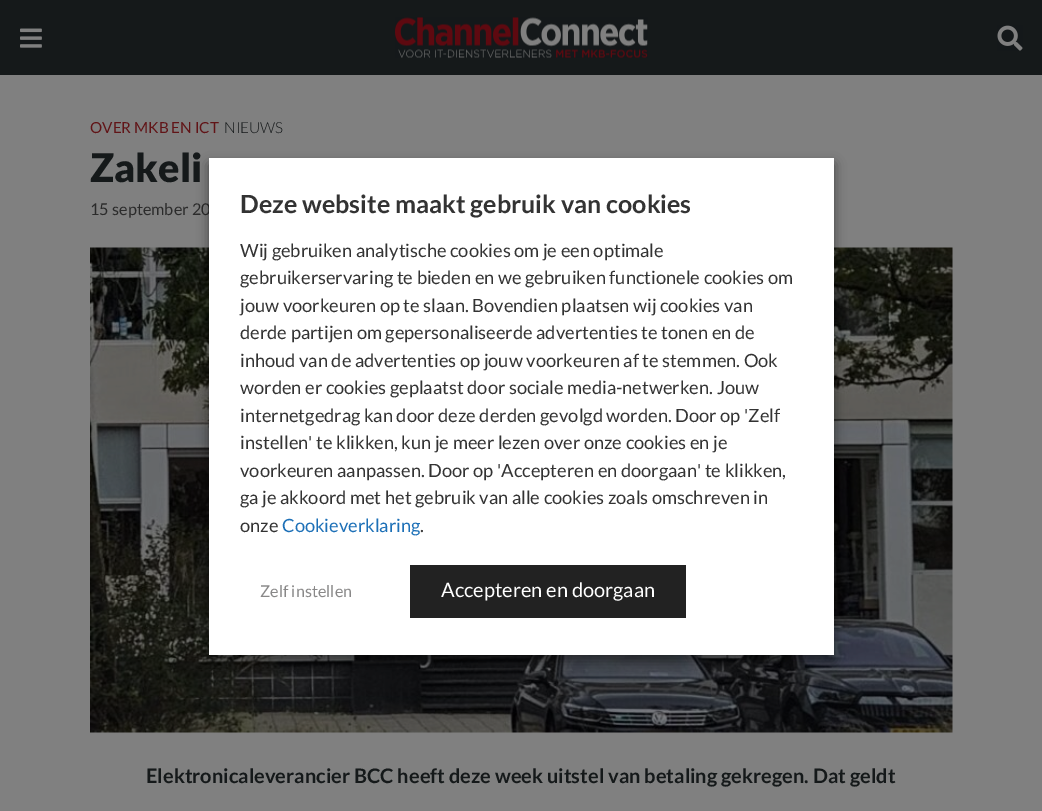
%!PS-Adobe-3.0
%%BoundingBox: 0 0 1042 811
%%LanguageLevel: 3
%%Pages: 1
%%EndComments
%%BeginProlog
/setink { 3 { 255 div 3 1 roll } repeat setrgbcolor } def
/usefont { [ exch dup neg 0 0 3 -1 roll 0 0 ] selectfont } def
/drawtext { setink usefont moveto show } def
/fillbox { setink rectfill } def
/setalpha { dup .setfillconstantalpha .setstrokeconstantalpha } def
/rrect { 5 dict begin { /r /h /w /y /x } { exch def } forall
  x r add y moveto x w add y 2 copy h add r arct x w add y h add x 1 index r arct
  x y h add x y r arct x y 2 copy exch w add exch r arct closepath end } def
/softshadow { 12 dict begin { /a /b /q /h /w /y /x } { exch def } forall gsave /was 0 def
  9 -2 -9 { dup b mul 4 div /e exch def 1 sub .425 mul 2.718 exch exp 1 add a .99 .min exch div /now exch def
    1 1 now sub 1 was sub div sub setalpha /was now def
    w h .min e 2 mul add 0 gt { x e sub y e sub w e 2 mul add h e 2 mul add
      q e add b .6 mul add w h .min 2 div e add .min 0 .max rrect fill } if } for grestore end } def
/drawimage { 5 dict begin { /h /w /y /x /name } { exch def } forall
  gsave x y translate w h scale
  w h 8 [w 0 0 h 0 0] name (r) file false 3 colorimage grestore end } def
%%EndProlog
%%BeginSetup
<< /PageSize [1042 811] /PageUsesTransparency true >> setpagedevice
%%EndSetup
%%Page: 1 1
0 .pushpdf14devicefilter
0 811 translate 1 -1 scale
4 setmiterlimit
0 0 1042 811 128 128 128 fillbox
0 0 1042 75 21 25 26 fillbox
(assets/img1.rgb) 20 28 22 20 drawimage
(assets/img2.rgb) 395 17 253 41 drawimage
(assets/img3.rgb) 997 25 26 26 drawimage
(OVER MKB EN ICT) 90 133 /Lato-Regular 15.25 97 20 23 drawtext
(NIEUWS) 224 133 /Lato-Light 15.25 21 25 26 drawtext
(Zakeli) 90 182 /Lato-Black 39.5 21 25 26 drawtext
(15 september 20) 90 215 /Lato-Regular 16.25 43 43 43 drawtext
(assets/img4.rgb) 90 247 863 486 drawimage
(Elektronicaleverancier BCC heeft deze week uitstel van betaling gekregen. Dat geldt) 146 783 /Lato-Bold 20 21 25 26 drawtext
0 0 0 setink
209 164 625 497 0 6 0.5 softshadow
209 158 625 497 255 255 255 fillbox
(Deze website maakt gebruik van cookies) 240 213 /Lato-Bold 25 51 51 51 drawtext
(Wij gebruiken analytische cookies om je een optimale) 240 257 /Lato-Regular 18.3 51 51 51 drawtext
(gebruikerservaring te bieden en we gebruiken functionele cookies om) 240 284 /Lato-Regular 18.3 51 51 51 drawtext
(jouw voorkeuren op te slaan. Bovendien plaatsen wij cookies van) 240 312 /Lato-Regular 18.3 51 51 51 drawtext
(derde partijen om gepersonaliseerde advertenties te tonen en de) 240 339 /Lato-Regular 18.3 51 51 51 drawtext
(inhoud van de advertenties op jouw voorkeuren af te stemmen. Ook) 240 367 /Lato-Regular 18.3 51 51 51 drawtext
(worden er cookies geplaatst door sociale media-netwerken. Jouw) 240 394 /Lato-Regular 18.3 51 51 51 drawtext
(internetgedrag kan door deze derden gevolgd worden. Door op 'Zelf) 240 422 /Lato-Regular 18.3 51 51 51 drawtext
(instellen' te klikken, kun je meer lezen over onze cookies en je) 240 449 /Lato-Regular 18.3 51 51 51 drawtext
(voorkeuren aanpassen. Door op 'Accepteren en doorgaan' te klikken,) 240 477 /Lato-Regular 18.3 51 51 51 drawtext
(ga je akkoord met het gebruik van alle cookies zoals omschreven in) 240 504 /Lato-Regular 18.3 51 51 51 drawtext
(onze) 240 532 /Lato-Regular 18.3 51 51 51 drawtext
(Cookieverklaring) 282 532 /Lato-Regular 18.3 29 112 183 drawtext
(.) 420 532 /Lato-Regular 18.3 51 51 51 drawtext
(Zelf instellen) 260 597 /Lato-Regular 16.25 137 136 136 drawtext
410 565 276 53 34 34 34 fillbox
(Accepteren en doorgaan) 441 597 /Lato-Regular 20 255 255 255 drawtext
.poppdf14devicefilter showpage
%%EOF
